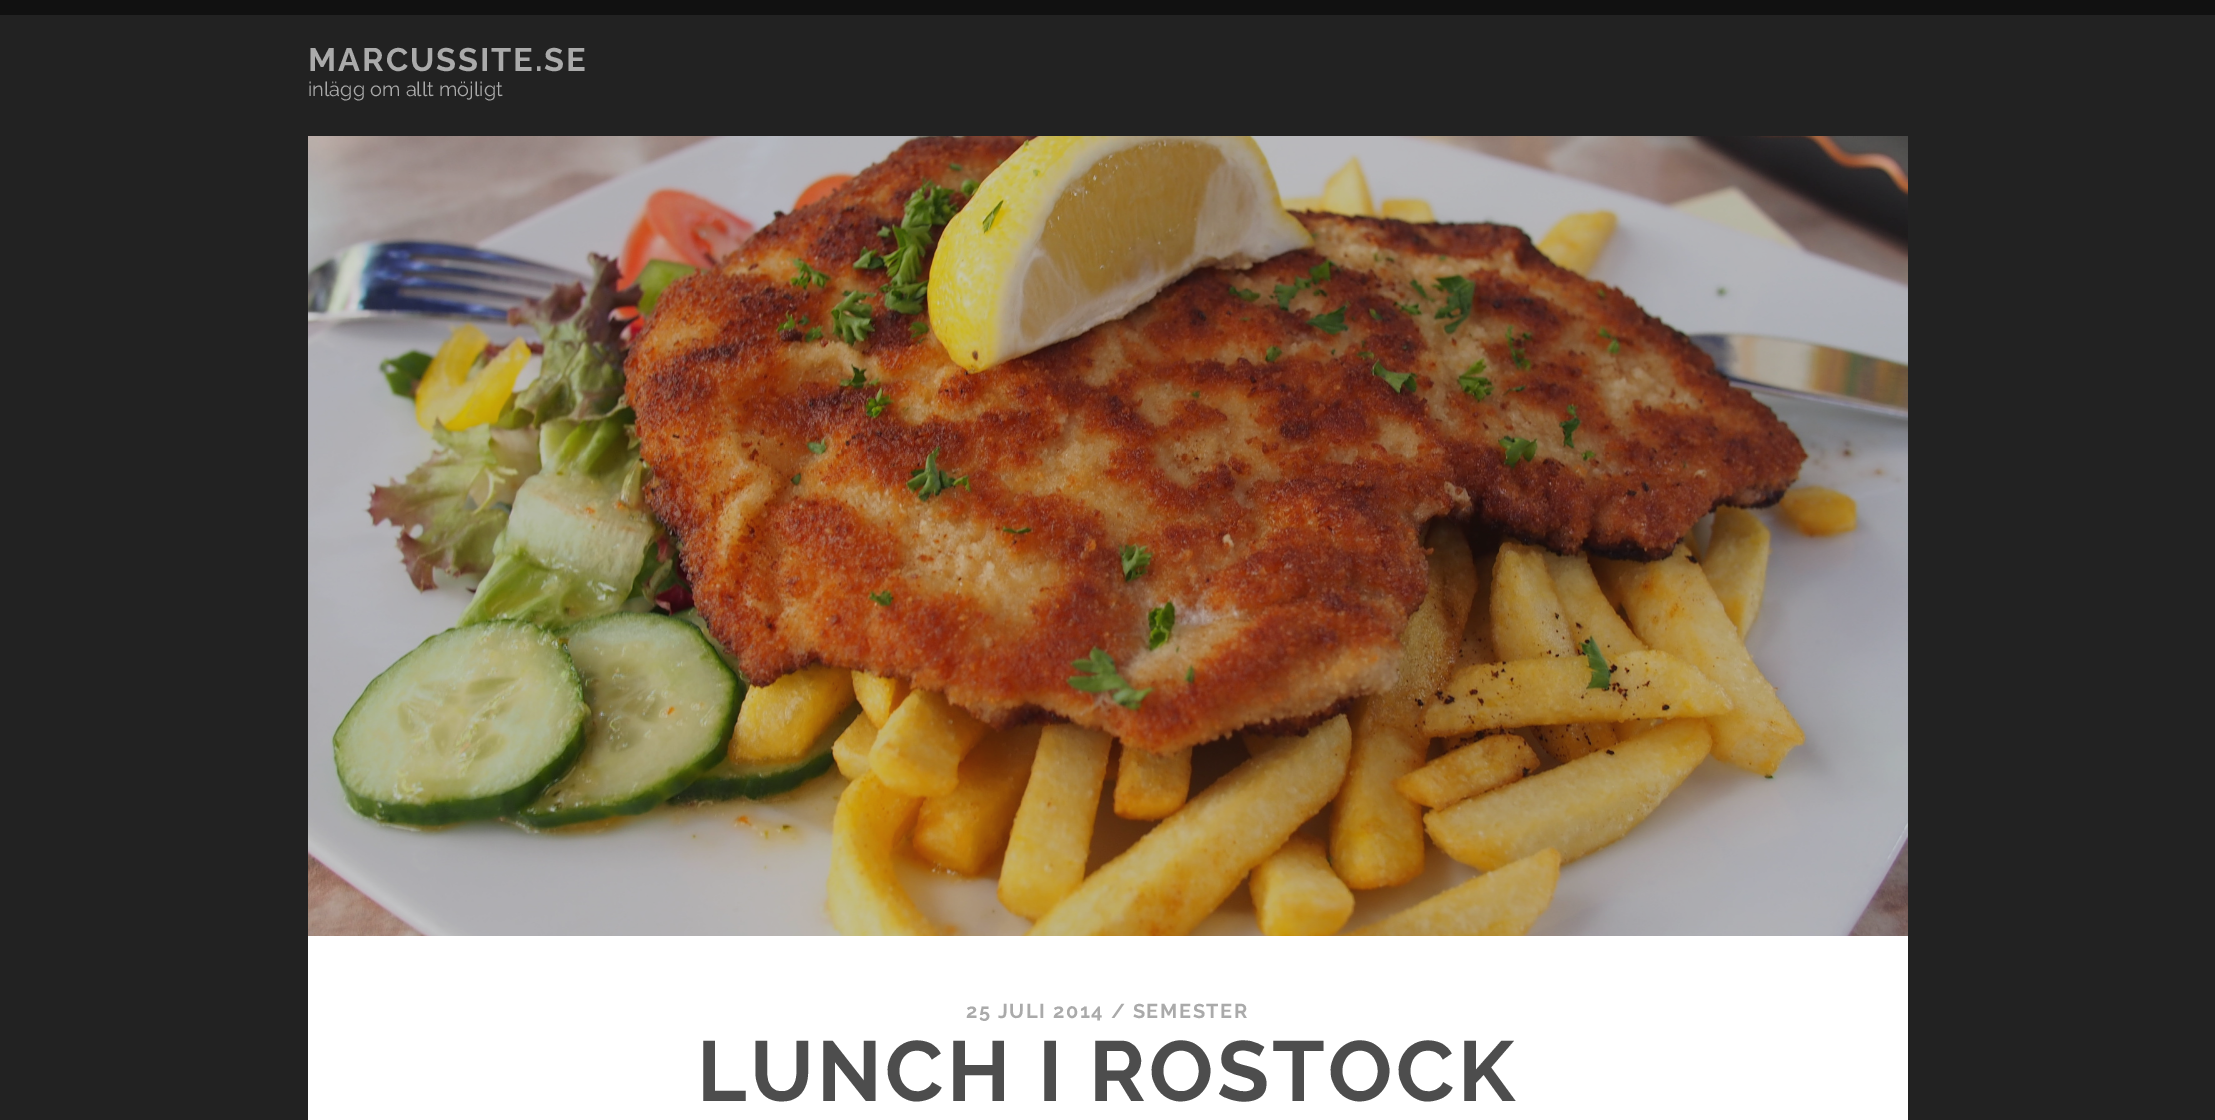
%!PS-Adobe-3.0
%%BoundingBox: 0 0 2215 1120
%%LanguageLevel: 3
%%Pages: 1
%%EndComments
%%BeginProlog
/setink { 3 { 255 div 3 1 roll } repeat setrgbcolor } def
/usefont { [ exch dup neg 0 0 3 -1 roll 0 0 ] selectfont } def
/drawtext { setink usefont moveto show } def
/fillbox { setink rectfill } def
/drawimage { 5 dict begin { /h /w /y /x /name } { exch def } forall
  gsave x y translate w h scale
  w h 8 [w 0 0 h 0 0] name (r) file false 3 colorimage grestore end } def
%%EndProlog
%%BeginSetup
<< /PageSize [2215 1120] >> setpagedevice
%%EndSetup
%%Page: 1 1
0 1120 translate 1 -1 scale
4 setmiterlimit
0 0 2215 1120 34 34 34 fillbox
0 0 2215 15 17 17 17 fillbox
/Raleway-Bold 32.5 usefont
170 170 170 setink
308 71 moveto 2 0 (MARCUSSITE.SE) ashow
(inlägg om allt möjligt) 308 96 /Raleway-Regular 20 170 170 170 drawtext
308 936 1600 184 255 255 255 fillbox
(assets/img1.rgb) 308 136 1600 800 drawimage
/Raleway-Bold 20 usefont
170 170 170 setink
966 1018 moveto 1.6 0 (25 JULI 2014 / SEMESTER) ashow
/Raleway-Bold 85 usefont
77 77 77 setink
697 1101 moveto 3.4 0 (LUNCH I ROSTOCK) ashow
showpage
%%EOF
